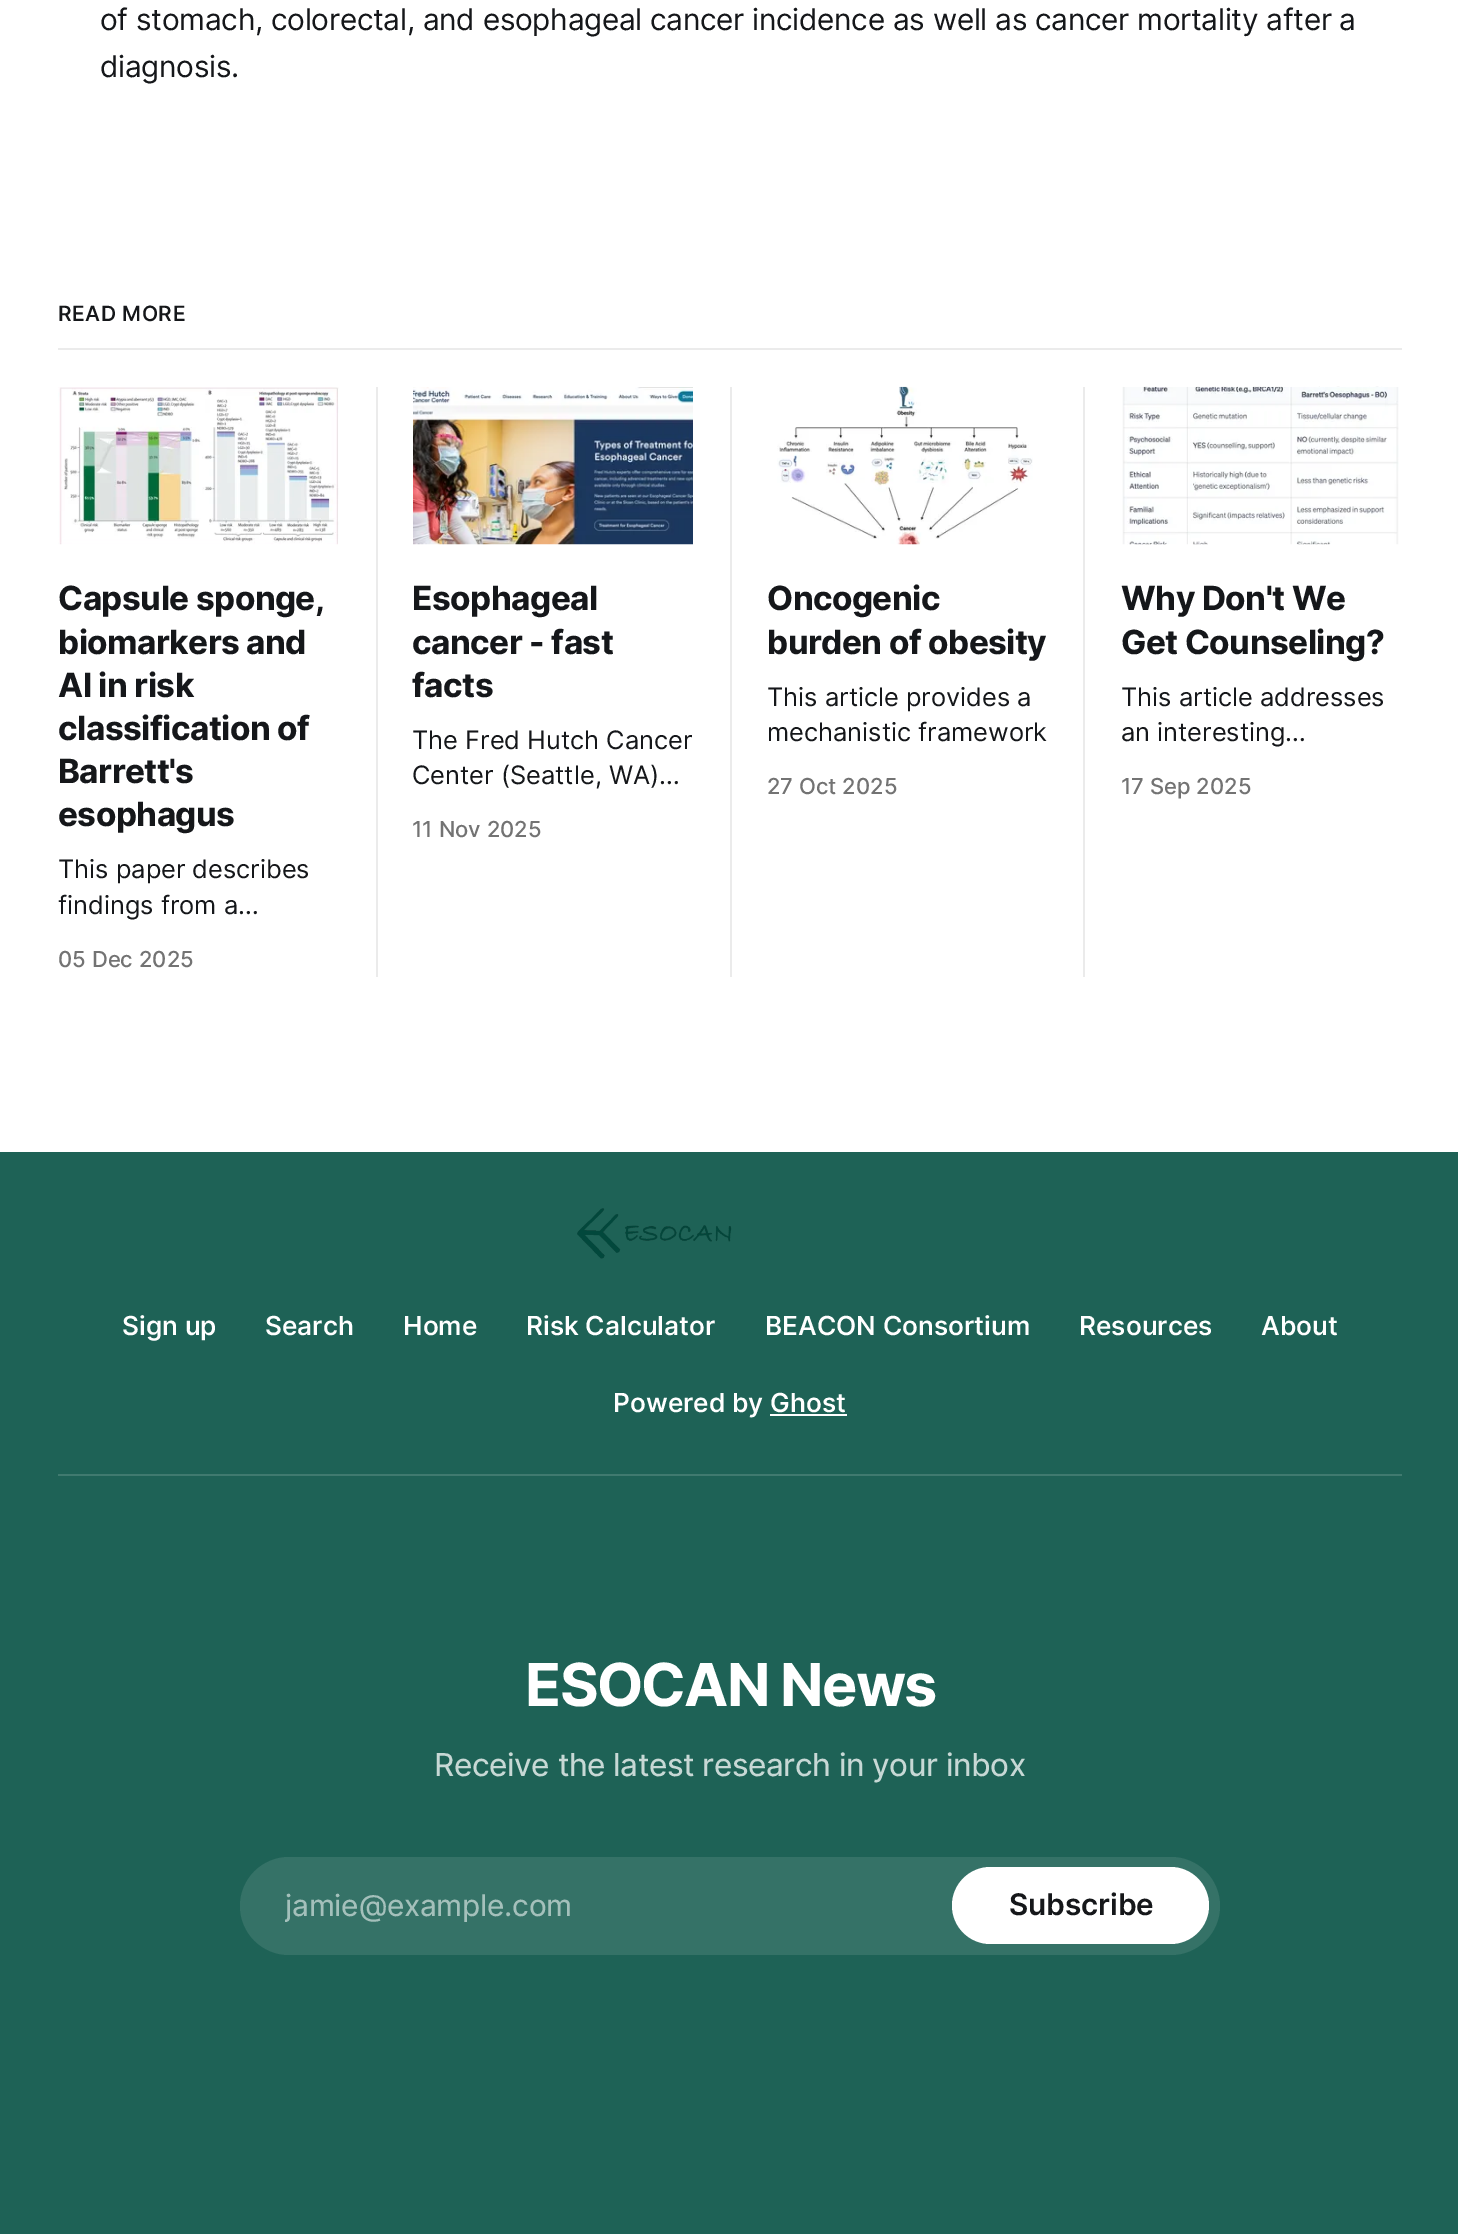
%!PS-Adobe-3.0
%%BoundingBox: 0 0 1458 2234
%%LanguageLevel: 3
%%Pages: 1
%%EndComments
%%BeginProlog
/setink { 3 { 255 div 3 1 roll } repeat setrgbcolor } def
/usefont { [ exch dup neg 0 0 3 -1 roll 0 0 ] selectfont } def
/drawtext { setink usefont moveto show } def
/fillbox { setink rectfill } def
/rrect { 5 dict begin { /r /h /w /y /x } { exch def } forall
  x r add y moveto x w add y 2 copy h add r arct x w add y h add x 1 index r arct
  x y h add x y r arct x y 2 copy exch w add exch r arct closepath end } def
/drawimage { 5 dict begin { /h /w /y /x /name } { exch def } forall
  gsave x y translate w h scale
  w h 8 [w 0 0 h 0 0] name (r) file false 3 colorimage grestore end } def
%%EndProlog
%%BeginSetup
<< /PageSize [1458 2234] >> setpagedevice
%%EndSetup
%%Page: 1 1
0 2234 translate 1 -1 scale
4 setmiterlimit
0 0 1458 2234 255 255 255 fillbox
/Inter-Regular 29.75 usefont
21 23 26 setink
100 30 moveto -0.3 0 (of stomach, colorectal, and esophageal cancer incidence as well as cancer mortality after a) ashow
100 77 moveto -0.3 0 (diagnosis.) ashow
58 348 1344 2 235 235 235 fillbox
/Inter-Medium 21 usefont
21 23 26 setink
58 321 moveto 0.5 0 (READ MORE) ashow
(assets/img1.rgb) 58 387 281 158 drawimage
/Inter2-Bold 33.25 usefont
58 610 moveto -0.5 0 (Capsule sponge,) ashow
58 654 moveto -0.5 0 (biomarkers and) ashow
58 697 moveto -0.5 0 (AI in risk) ashow
58 740 moveto -0.5 0 (classification of) ashow
58 783 moveto -0.5 0 (Barrett's) ashow
58 826 moveto -0.5 0 (esophagus) ashow
(This paper describes) 58 878 /Inter-Regular 25.4 21 23 26 drawtext
(findings from a…) 58 914 /Inter-Regular 25.4 21 23 26 drawtext
(05 Dec 2025) 58 967 /Inter2-Medium 22 115 115 115 drawtext
376 387 2 590 235 235 235 fillbox
(assets/img2.rgb) 413 387 280 158 drawimage
/Inter2-Bold 33.25 usefont
21 23 26 setink
412 610 moveto -0.5 0 (Esophageal) ashow
412 654 moveto -0.5 0 (cancer - fast) ashow
412 697 moveto -0.5 0 (facts) ashow
(The Fred Hutch Cancer) 412 749 /Inter-Regular 25.4 21 23 26 drawtext
(Center \(Seattle, WA\)…) 412 784 /Inter-Regular 25.4 21 23 26 drawtext
(11 Nov 2025) 412 837 /Inter2-Medium 22 115 115 115 drawtext
730 387 2 590 235 235 235 fillbox
(assets/img3.rgb) 777 386 256 159 drawimage
/Inter2-Bold 33.25 usefont
21 23 26 setink
767 610 moveto -0.5 0 (Oncogenic) ashow
767 654 moveto -0.5 0 (burden of obesity) ashow
(This article provides a) 767 706 /Inter-Regular 25.4 21 23 26 drawtext
(mechanistic framework) 767 741 /Inter-Regular 25.4 21 23 26 drawtext
(27 Oct 2025) 767 794 /Inter2-Medium 22 115 115 115 drawtext
1083 387 2 590 235 235 235 fillbox
(assets/img4.rgb) 1122 386 277 159 drawimage
/Inter2-Bold 33.25 usefont
21 23 26 setink
1121 610 moveto -0.5 0 (Why Don't We) ashow
1121 654 moveto -0.5 0 (Get Counseling?) ashow
(This article addresses) 1121 706 /Inter-Regular 25.4 21 23 26 drawtext
(an interesting…) 1121 741 /Inter-Regular 25.4 21 23 26 drawtext
(17 Sep 2025) 1121 794 /Inter2-Medium 22 115 115 115 drawtext
0 1152 1458 1082 30 98 86 fillbox
58 1474 1344 2 64 122 111 fillbox
(assets/img5.rgb) 577 1208 155 51 drawimage
(Sign up) 122 1335 /Inter-Medium 26.25 255 255 255 drawtext
(Search) 265 1335 /Inter-Medium 26.25 255 255 255 drawtext
(Home) 403 1335 /Inter-Medium 26.25 255 255 255 drawtext
(Risk Calculator) 526 1335 /Inter-Medium 26.25 255 255 255 drawtext
(BEACON Consortium) 765 1335 /Inter-Medium 26.25 255 255 255 drawtext
(Resources) 1079 1335 /Inter-Medium 26.25 255 255 255 drawtext
(About) 1261 1335 /Inter-Medium 26.25 255 255 255 drawtext
(Powered by Ghost) 613 1412 /Inter-Medium 26.25 255 255 255 drawtext
770 1414 77 2 255 255 255 fillbox
/Inter-Bold 59.25 usefont
525 1706 moveto -1.75 0 (ESOCAN News) ashow
/Inter2-Regular 31.5 usefont
199 216 213 setink
434 1776 moveto -0.45 0 (Receive the latest research in your inbox) ashow
53 114 103 setink
240 1857 980 98 49 rrect fill
gsave
285 1888 889 35 rectclip
/Inter2-Regular 29.75 usefont
164 192 187 setink
285 1916 moveto -0.25 0 (jamie@example.com) ashow
grestore
255 255 255 setink
952 1867 257 77 38.5 rrect fill
/Inter-SemiBold 29.75 usefont
21 23 26 setink
1009 1915 moveto -0.1 0 (Subscribe) ashow
showpage
%%EOF
